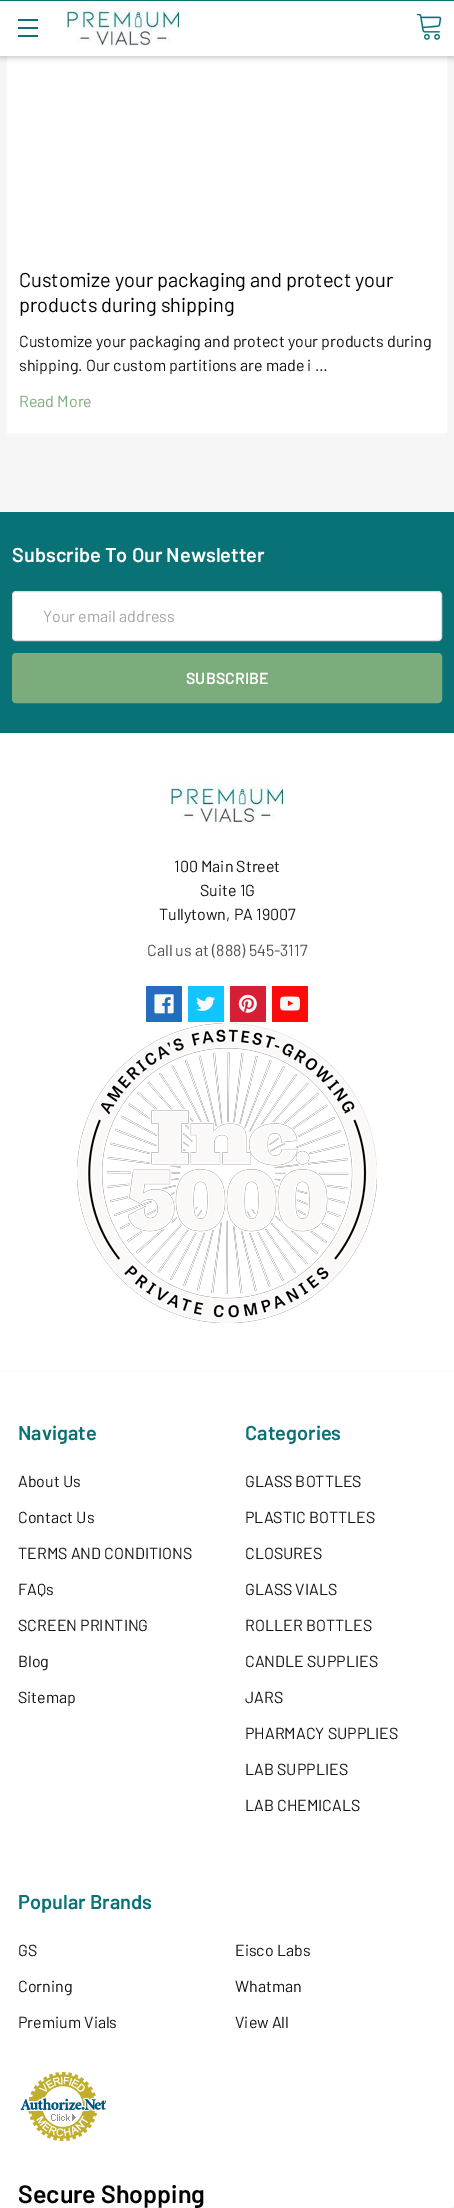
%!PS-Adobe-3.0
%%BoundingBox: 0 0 454 2208
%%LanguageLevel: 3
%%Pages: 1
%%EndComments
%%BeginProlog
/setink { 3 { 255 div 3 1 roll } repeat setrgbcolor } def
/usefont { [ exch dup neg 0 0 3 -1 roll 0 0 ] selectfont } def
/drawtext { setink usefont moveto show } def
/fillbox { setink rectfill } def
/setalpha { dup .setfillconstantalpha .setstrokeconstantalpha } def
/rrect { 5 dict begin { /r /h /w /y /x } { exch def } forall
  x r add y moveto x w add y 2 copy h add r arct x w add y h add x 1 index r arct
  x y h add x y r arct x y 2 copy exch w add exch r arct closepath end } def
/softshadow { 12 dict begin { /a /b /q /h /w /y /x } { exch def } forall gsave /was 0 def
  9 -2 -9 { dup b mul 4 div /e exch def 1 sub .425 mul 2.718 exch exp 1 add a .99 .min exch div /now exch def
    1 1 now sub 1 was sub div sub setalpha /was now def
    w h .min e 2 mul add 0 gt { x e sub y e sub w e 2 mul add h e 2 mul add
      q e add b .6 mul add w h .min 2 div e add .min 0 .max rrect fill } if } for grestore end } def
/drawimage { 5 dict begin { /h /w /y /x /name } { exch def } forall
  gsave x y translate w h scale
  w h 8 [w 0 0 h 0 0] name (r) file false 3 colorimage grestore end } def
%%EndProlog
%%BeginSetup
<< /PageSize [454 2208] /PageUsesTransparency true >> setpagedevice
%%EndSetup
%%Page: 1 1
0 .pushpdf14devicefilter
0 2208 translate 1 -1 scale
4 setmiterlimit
0 0 454 2208 245 245 245 fillbox
248 248 248 setink
6 430 moveto 6 433 6 437 10 437 curveto 444 437 lineto 448 437 448 433 448 430 curveto 448 432 446 434 444 434 curveto 10 434 lineto 8 434 6 432 6 430 curveto closepath fill
255 255 255 setink
6.5 -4.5 441 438 3.5 rrect gsave fill grestore
248 248 248 setink
stroke
0 0 0 setink
0 2 454 56 0 2.5 0.2 softshadow
0 1 454 55 255 255 255 fillbox
0 0 454 1 9 114 118 fillbox
18 27 20 2 9 114 118 fillbox
18 19 20 2 9 114 118 fillbox
18 35 20 2 9 114 118 fillbox
(assets/img1.rgb) 67 4 112 43 drawimage
(assets/img2.rgb) 416 14 26 26 drawimage
(Customize your packaging and protect your) 19 287 /Barlow-Regular 20 0 0 0 drawtext
(products during shipping) 19 312 /Barlow-Regular 20 0 0 0 drawtext
(Customize your packaging and protect your products during) 19 347 /Barlow-Regular 16 19 19 19 drawtext
(shipping. Our custom partitions are made i …) 19 371 /Barlow-Regular 16 19 19 19 drawtext
(Read More) 19 407 /Barlow-Regular 16 125 172 124 drawtext
0 733 454 1475 255 255 255 fillbox
0 512 454 221 9 114 118 fillbox
(Subscribe To Our Newsletter) 12 562 /Barlow-SemiBold 20 255 255 255 drawtext
12.5 591.5 429 49 3.5 rrect gsave fill grestore
220 220 220 setink
stroke
(Your email address) 43 622 /Barlow-Regular 16 165 165 165 drawtext
125 172 124 setink
12.5 653.5 429 49 3.5 rrect gsave fill grestore
stroke
(SUBSCRIBE) 186 684 /Barlow-SemiBold 16 255 255 255 drawtext
0 1371 454 1 248 248 248 fillbox
(assets/img3.rgb) 171 781 112 43 drawimage
(100 Main Street) 174 872 /Barlow-Regular 16 19 19 19 drawtext
(Suite 1G) 200 896 /Barlow-Regular 16 19 19 19 drawtext
(Tullytown, PA 19007) 159 920 /Barlow-Regular 16 19 19 19 drawtext
(Call us at \(888\) 545-3117) 147 956 /Barlow-Regular 16 80 80 80 drawtext
146 986 36 36 35 108 190 fillbox
(assets/img4.rgb) 154 994 20 20 drawimage
188 986 36 36 18 196 255 fillbox
(assets/img5.rgb) 196 996 20 15 drawimage
230 986 36 36 214 31 53 fillbox
(assets/img6.rgb) 238 994 19 19 drawimage
272 986 36 36 255 10 10 fillbox
(assets/img7.rgb) 280 996 20 15 drawimage
(assets/img8.rgb) 77 1023 300 300 drawimage
(Navigate) 18 1440 /Barlow-SemiBold 20 9 114 118 drawtext
(About Us) 18 1487 /Barlow-Regular 16 19 19 19 drawtext
(Contact Us) 18 1523 /Barlow-Regular 16 19 19 19 drawtext
(TERMS AND CONDITIONS) 18 1559 /Barlow-Regular 16 19 19 19 drawtext
(FAQs) 18 1595 /Barlow-Regular 16 19 19 19 drawtext
(SCREEN PRINTING) 18 1631 /Barlow-Regular 16 19 19 19 drawtext
(Blog) 18 1667 /Barlow-Regular 16 19 19 19 drawtext
(Sitemap) 18 1703 /Barlow-Regular 16 19 19 19 drawtext
(Categories) 245 1440 /Barlow-SemiBold 20 9 114 118 drawtext
(GLASS BOTTLES) 245 1487 /Barlow-Regular 16 19 19 19 drawtext
(PLASTIC BOTTLES) 245 1523 /Barlow-Regular 16 19 19 19 drawtext
(CLOSURES) 245 1559 /Barlow-Regular 16 19 19 19 drawtext
(GLASS VIALS) 245 1595 /Barlow-Regular 16 19 19 19 drawtext
(ROLLER BOTTLES) 245 1631 /Barlow-Regular 16 19 19 19 drawtext
(CANDLE SUPPLIES) 245 1667 /Barlow-Regular 16 19 19 19 drawtext
(JARS) 245 1703 /Barlow-Regular 16 19 19 19 drawtext
(PHARMACY SUPPLIES) 245 1739 /Barlow-Regular 16 19 19 19 drawtext
(LAB SUPPLIES) 245 1775 /Barlow-Regular 16 19 19 19 drawtext
(LAB CHEMICALS) 245 1811 /Barlow-Regular 16 19 19 19 drawtext
(Popular Brands) 18 1909 /Barlow-SemiBold 20 9 114 118 drawtext
(GS) 18 1956 /Barlow-Regular 16 19 19 19 drawtext
(Eisco Labs) 235 1956 /Barlow-Regular 16 19 19 19 drawtext
(Corning) 18 1992 /Barlow-Regular 16 19 19 19 drawtext
(Whatman) 235 1992 /Barlow-Regular 16 19 19 19 drawtext
(Premium Vials) 18 2028 /Barlow-Regular 16 19 19 19 drawtext
(View All) 235 2028 /Barlow-Regular 16 19 19 19 drawtext
(assets/img9.rgb) 20 2072 86 69 drawimage
(Secure Shopping) 18 2203 /Barlow-SemiBold 25 0 0 0 drawtext
452 2206 2 2 245 245 245 fillbox
.poppdf14devicefilter showpage
%%EOF
